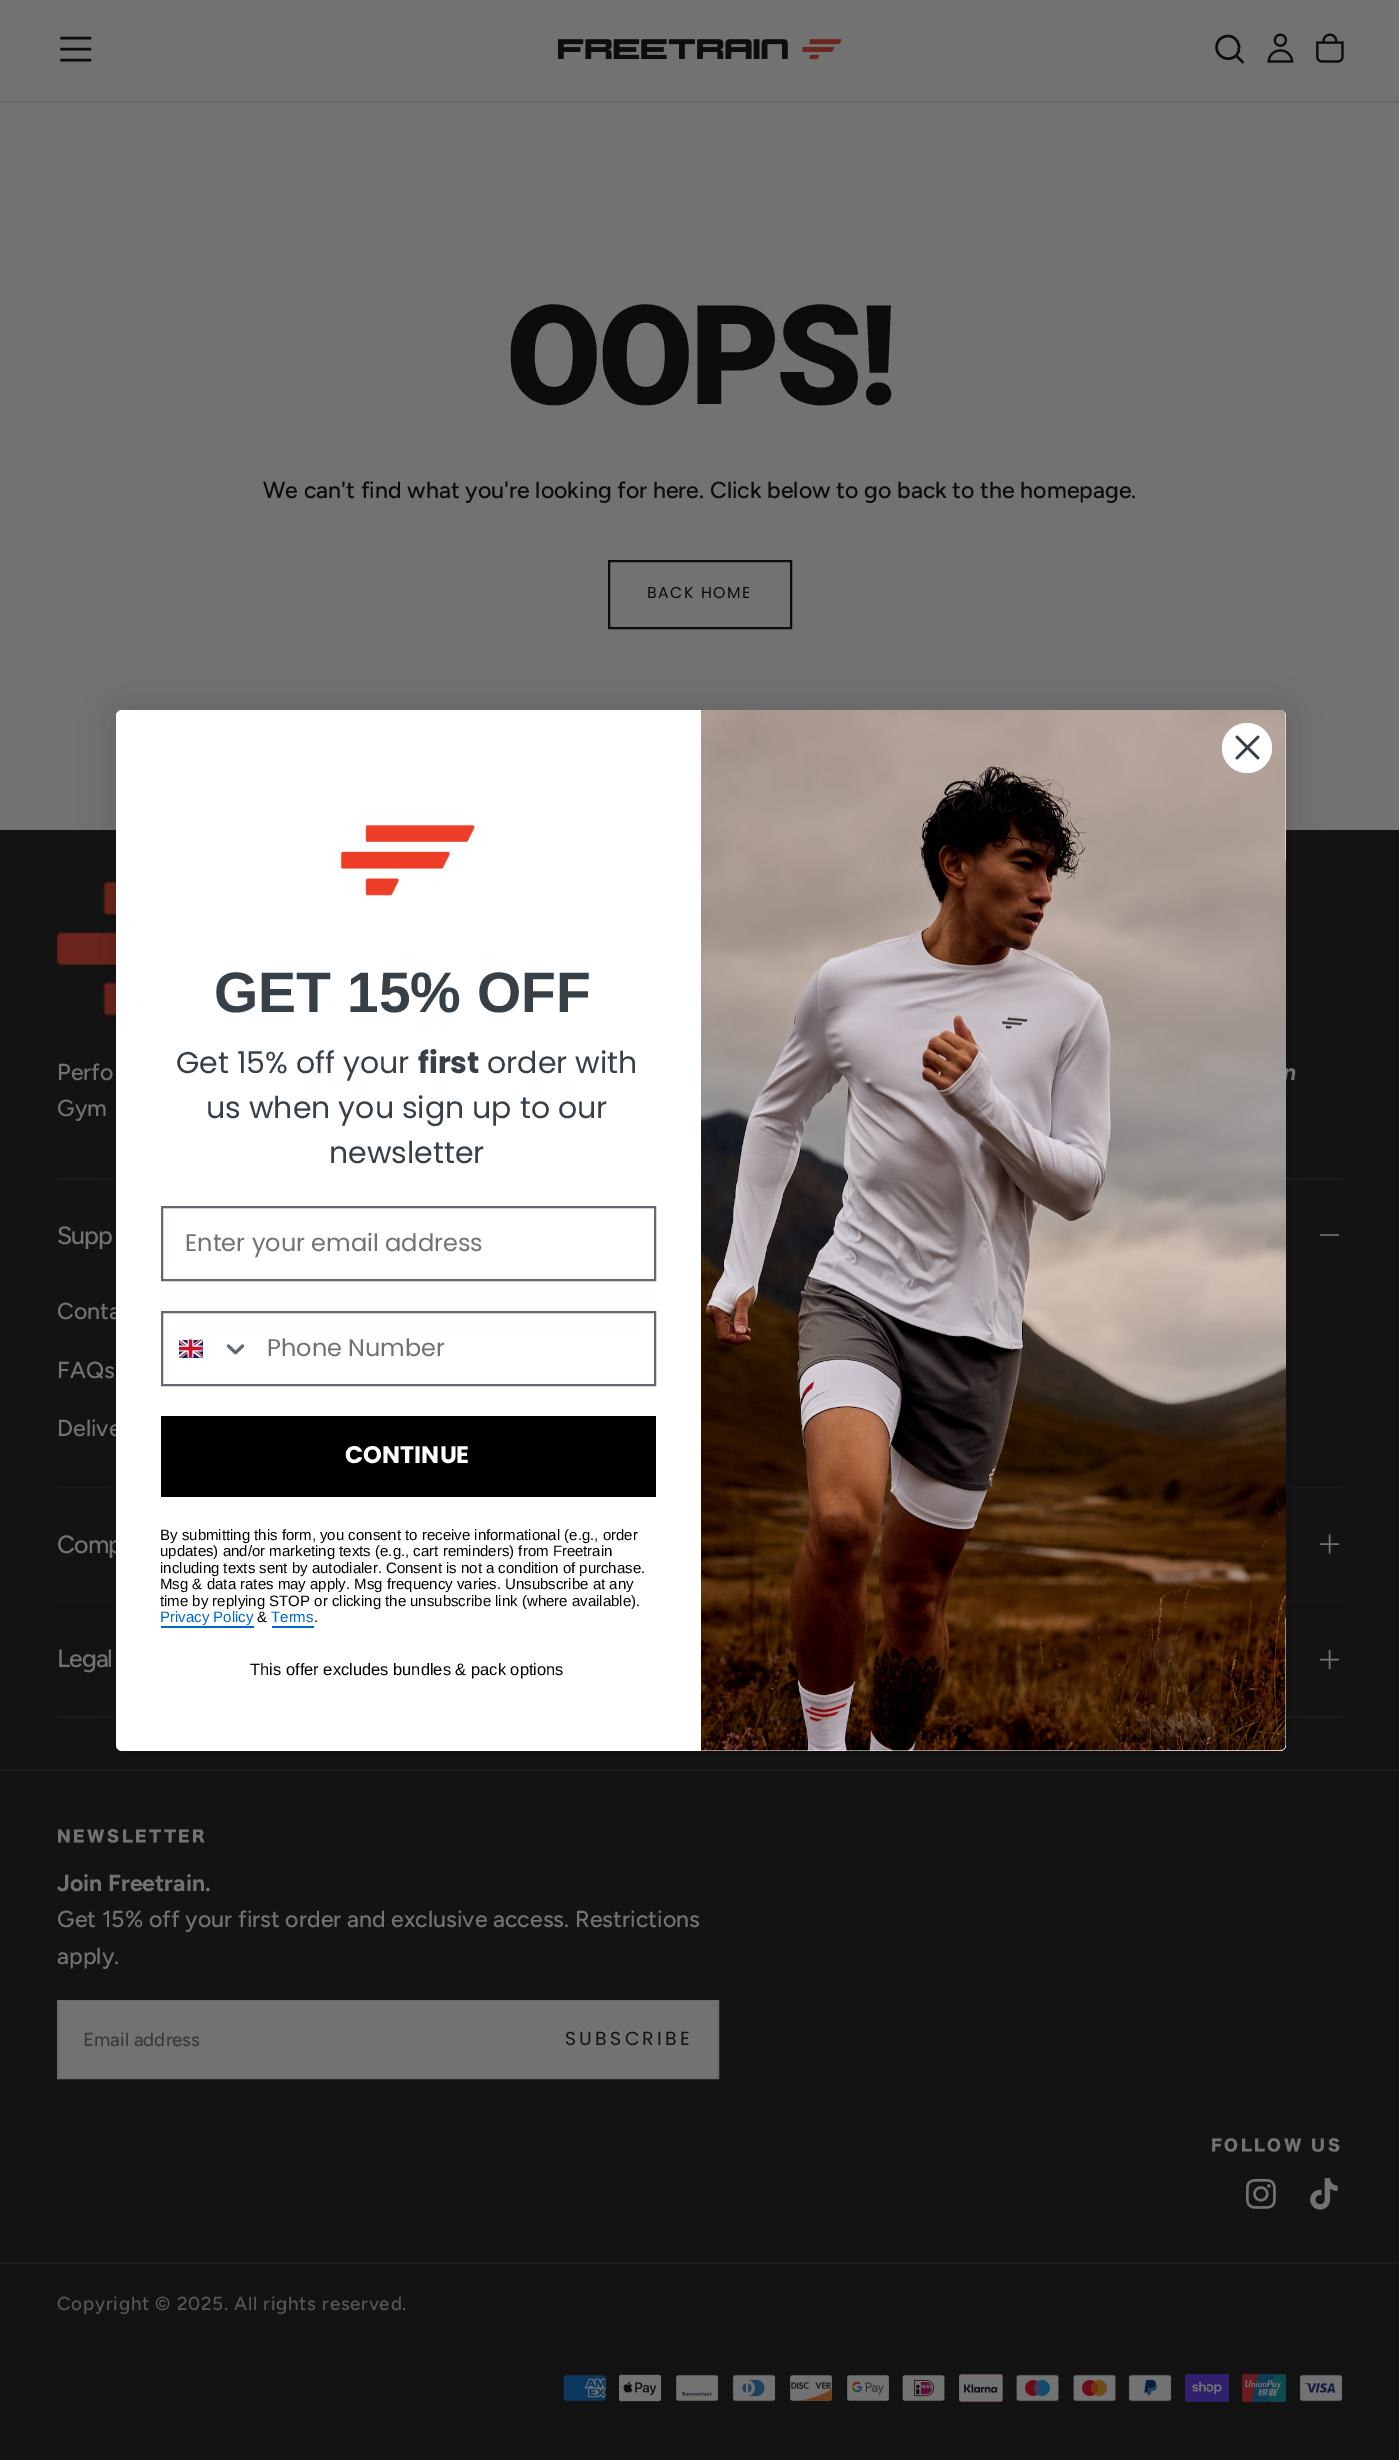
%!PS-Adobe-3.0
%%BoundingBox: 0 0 1399 2460
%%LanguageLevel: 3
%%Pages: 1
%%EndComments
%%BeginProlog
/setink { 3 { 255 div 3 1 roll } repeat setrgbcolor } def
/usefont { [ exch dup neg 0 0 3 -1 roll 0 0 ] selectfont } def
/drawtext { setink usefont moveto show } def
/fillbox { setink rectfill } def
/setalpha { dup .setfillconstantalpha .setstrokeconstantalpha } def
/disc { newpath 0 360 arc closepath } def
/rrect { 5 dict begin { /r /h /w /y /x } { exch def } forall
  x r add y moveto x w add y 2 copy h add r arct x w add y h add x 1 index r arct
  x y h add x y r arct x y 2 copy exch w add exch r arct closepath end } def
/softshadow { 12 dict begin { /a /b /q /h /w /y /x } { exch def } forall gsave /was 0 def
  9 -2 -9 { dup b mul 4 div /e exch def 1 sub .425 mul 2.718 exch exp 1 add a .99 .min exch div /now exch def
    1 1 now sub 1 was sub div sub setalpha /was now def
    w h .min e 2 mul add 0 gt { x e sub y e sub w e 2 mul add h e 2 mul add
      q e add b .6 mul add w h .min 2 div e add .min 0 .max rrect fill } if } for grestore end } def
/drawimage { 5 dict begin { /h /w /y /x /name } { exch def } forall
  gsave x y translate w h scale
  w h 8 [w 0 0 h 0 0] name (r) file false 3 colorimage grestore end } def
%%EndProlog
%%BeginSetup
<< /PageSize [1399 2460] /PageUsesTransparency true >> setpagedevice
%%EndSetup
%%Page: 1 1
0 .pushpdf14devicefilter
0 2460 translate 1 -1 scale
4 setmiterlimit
0 0 1399 2460 114 114 114 fillbox
0 101 1399 2 104 104 104 fillbox
12 12 12 setink
2.4 setlinewidth
2 setlinecap
61.5 49 moveto 90 49 lineto 61.5 38 moveto 90 38 lineto 61.5 60 moveto 90 60 lineto stroke
(assets/img1.rgb) 558 39 284 20 drawimage
1242.5 62 moveto 1236 55.5 lineto 1236 55.5 moveto 1241 50.5 1240 42 1234 38 curveto 1231 35.5 1227 35.5 1223.5 37 curveto 1220.5 38 1218.5 40 1217.5 43 curveto 1212.5 54.5 1227.5 64 1236 55.5 curveto closepath stroke
(assets/img2.rgb) 1267 33 27 30 drawimage
(assets/img3.rgb) 1316 33 28 30 drawimage
/Roboto-Black 138.5 usefont
506 404 moveto -3.75 0 (OOPS!) ashow
(We can't find what you're looking for here. Click below to go back to the homepage.) 263 498 /Figtree-Medium 23.15 12 12 12 drawtext
2 setlinewidth
0 setlinecap
609 561 182 67 rectstroke
/Poppins-Regular 15.75 usefont
647 598 moveto 1.5 0 (BACK HOME) ashow
0 830 1399 1630 19 19 19 fillbox
(assets/img8.rgb) 57 882 59 134 drawimage
57 1178 1286 2 28 28 28 fillbox
57 1487 1286 1 28 28 28 fillbox
1320 1234 19 2 95 95 95 fillbox
57 1601 1286 1 28 28 28 fillbox
114 114 114 setink
1.6 setlinewidth
2 setlinecap
1329.5 1535.5 moveto 1329.5 1544 lineto 1329.5 1544 moveto 1329.5 1552.5 lineto 1329.5 1544 moveto 1321 1544 lineto 1329.5 1544 moveto 1338 1544 lineto stroke
57 1716 1286 2 28 28 28 fillbox
114 114 114 setink
1329.5 1651 moveto 1329.5 1659.5 lineto 1329.5 1659.5 moveto 1329.5 1668 lineto 1329.5 1659.5 moveto 1321 1659.5 lineto 1329.5 1659.5 moveto 1338 1659.5 lineto stroke
0 1769 1399 2 28 28 28 fillbox
0 0 0 setink
116 710 1170 1041 6 22.5 0.15 softshadow
(n) 1283 1080 /Figtree-BoldItalic 23.15 114 114 114 drawtext
(Conta) 57 1319 /Figtree-Medium 23.15 114 114 114 drawtext
(Delive) 57 1436 /Figtree-Medium 23.15 114 114 114 drawtext
/Figtree-Medium 25 usefont
57 1553 moveto -1 0 (Comp) ashow
255 255 255 setink
116 710 1170 1041 6 rrect fill
701 710 moveto 1280 710 lineto 1283.5 710 1286 712.5 1286 716 curveto 1286 1745 lineto 1286 1748.5 1283.5 1751 1280 1751 curveto 701 1751 lineto closepath fill
(assets/img7.rgb) 701 710 585 1041 drawimage
1247 748 25 disc fill
55 63 71 setink
2.6 setlinewidth
1 setlinecap
1 setlinejoin
1237 737 moveto 1258 758 lineto 1237 758 moveto 1258 737 lineto closepath stroke
(assets/img4.rgb) 340 824 135 72 drawimage
(GET 15% OFF) 214 1012 /LiberationSans-Bold 57 55 63 71 drawtext
(Get 15% off your) 176 1073 /Poppins-Regular 30 55 63 71 drawtext
(first) 418 1073 /Poppins-Bold 30 55 63 71 drawtext
(order with) 487 1073 /Poppins-Regular 30 55 63 71 drawtext
(us when you sign up to our) 206 1118 /Poppins-Regular 30 55 63 71 drawtext
(newsletter) 329 1163 /Poppins-Regular 30 55 63 71 drawtext
96 106 114 setink
2 setlinewidth
0 setlinecap
0 setlinejoin
162 1207 493 73 rectstroke
(Enter your email address) 185 1251 /Poppins-Regular 24 114 114 114 drawtext
96 106 114 setink
162 1312 493 73 rectstroke
(assets/img5.rgb) 179 1339 24 19 drawimage
(assets/img6.rgb) 226 1344 19 11 drawimage
(Phone Number) 267 1356 /Poppins-Regular 24 114 114 114 drawtext
161 1416 495 81 0 0 0 fillbox
(CONTINUE) 345 1463 /Poppins-Bold 24 255 255 255 drawtext
(By submitting this form, you consent to receive informational \(e.g., order) 160 1540 /LiberationSans-Regular 15 0 0 0 drawtext
(updates\) and/or marketing texts \(e.g., cart reminders\) from Freetrain) 160 1556 /LiberationSans-Regular 15 0 0 0 drawtext
(including texts sent by autodialer. Consent is not a condition of purchase.) 160 1573 /LiberationSans-Regular 15 0 0 0 drawtext
(Msg & data rates may apply. Msg frequency varies. Unsubscribe at any) 160 1589 /LiberationSans-Regular 15 0 0 0 drawtext
(time by replying STOP or clicking the unsubscribe link \(where available\).) 160 1606 /LiberationSans-Regular 15 0 0 0 drawtext
(Privacy Policy) 160 1622 /LiberationSans-Regular 15 0 102 204 drawtext
161 1626 93 2 0 102 204 fillbox
(&) 257 1622 /LiberationSans-Regular 15 0 0 0 drawtext
(Terms) 271 1622 /LiberationSans-Regular 15 0 102 204 drawtext
272 1626 42 2 0 102 204 fillbox
(.) 314 1622 /LiberationSans-Regular 15 0 0 0 drawtext
(This offer excludes bundles & pack options) 250 1675 /LiberationSans-Regular 16.5 0 0 0 drawtext
(Perfo) 57 1080 /Figtree-Medium 23.15 114 114 114 drawtext
(Gym) 57 1116 /Figtree-Medium 23.15 114 114 114 drawtext
/Figtree-Medium 25 usefont
57 1244 moveto -1 0 (Supp) ashow
(FAQs) 57 1378 /Figtree-Medium 23.15 114 114 114 drawtext
/Figtree-Medium 25 usefont
57 1667 moveto -1 0 (Legal) ashow
/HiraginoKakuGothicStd-ExtraBold 15.75 usefont
57 1842 moveto 2.5 0 (NEWSLETTER) ashow
(Join Freetrain.) 57 1891 /Figtree-Bold 23.15 114 114 114 drawtext
(Get 15% off your first order and exclusive access. Restrictions) 57 1927 /Figtree-Medium 23.15 114 114 114 drawtext
(apply.) 57 1964 /Figtree-Medium 23.15 114 114 114 drawtext
106 106 106 setink
58 2001 660 77 rectstroke
59 2001 658 77 114 114 114 fillbox
(Email address) 83 2046 /Figtree-Medium 18.9 59 59 59 drawtext
/Poppins-Regular 18.9 usefont
19 19 19 setink
565 2045 moveto 3.25 0 (SUBSCRIBE) ashow
/HiraginoKakuGothicStd-ExtraBold 15.75 usefont
114 114 114 setink
1211 2151 moveto 2.5 0 (FOLLOW US) ashow
(assets/img9.rgb) 1245 2178 31 31 drawimage
(assets/img10.rgb) 1310 2178 28 32 drawimage
0 2262 1399 2 28 28 28 fillbox
/Figtree-Medium 18.9 usefont
86 86 86 setink
57 2310 moveto 0.75 0 (Copyright © 2025. All rights reserved.) ashow
(assets/img11.rgb) 563 2375 43 26 drawimage
(assets/img12.rgb) 618 2374 44 28 drawimage
(assets/img13.rgb) 676 2375 42 26 drawimage
(assets/img14.rgb) 732 2374 44 28 drawimage
(assets/img15.rgb) 790 2375 42 26 drawimage
(assets/img16.rgb) 847 2375 42 26 drawimage
(assets/img17.rgb) 902 2375 43 26 drawimage
(assets/img18.rgb) 959 2374 44 28 drawimage
(assets/img19.rgb) 1016 2374 43 28 drawimage
(assets/img20.rgb) 1073 2374 43 28 drawimage
(assets/img21.rgb) 1128 2374 44 28 drawimage
(assets/img22.rgb) 1185 2374 45 28 drawimage
(assets/img23.rgb) 1242 2374 44 28 drawimage
(assets/img24.rgb) 1299 2374 44 28 drawimage
.poppdf14devicefilter showpage
%%EOF
